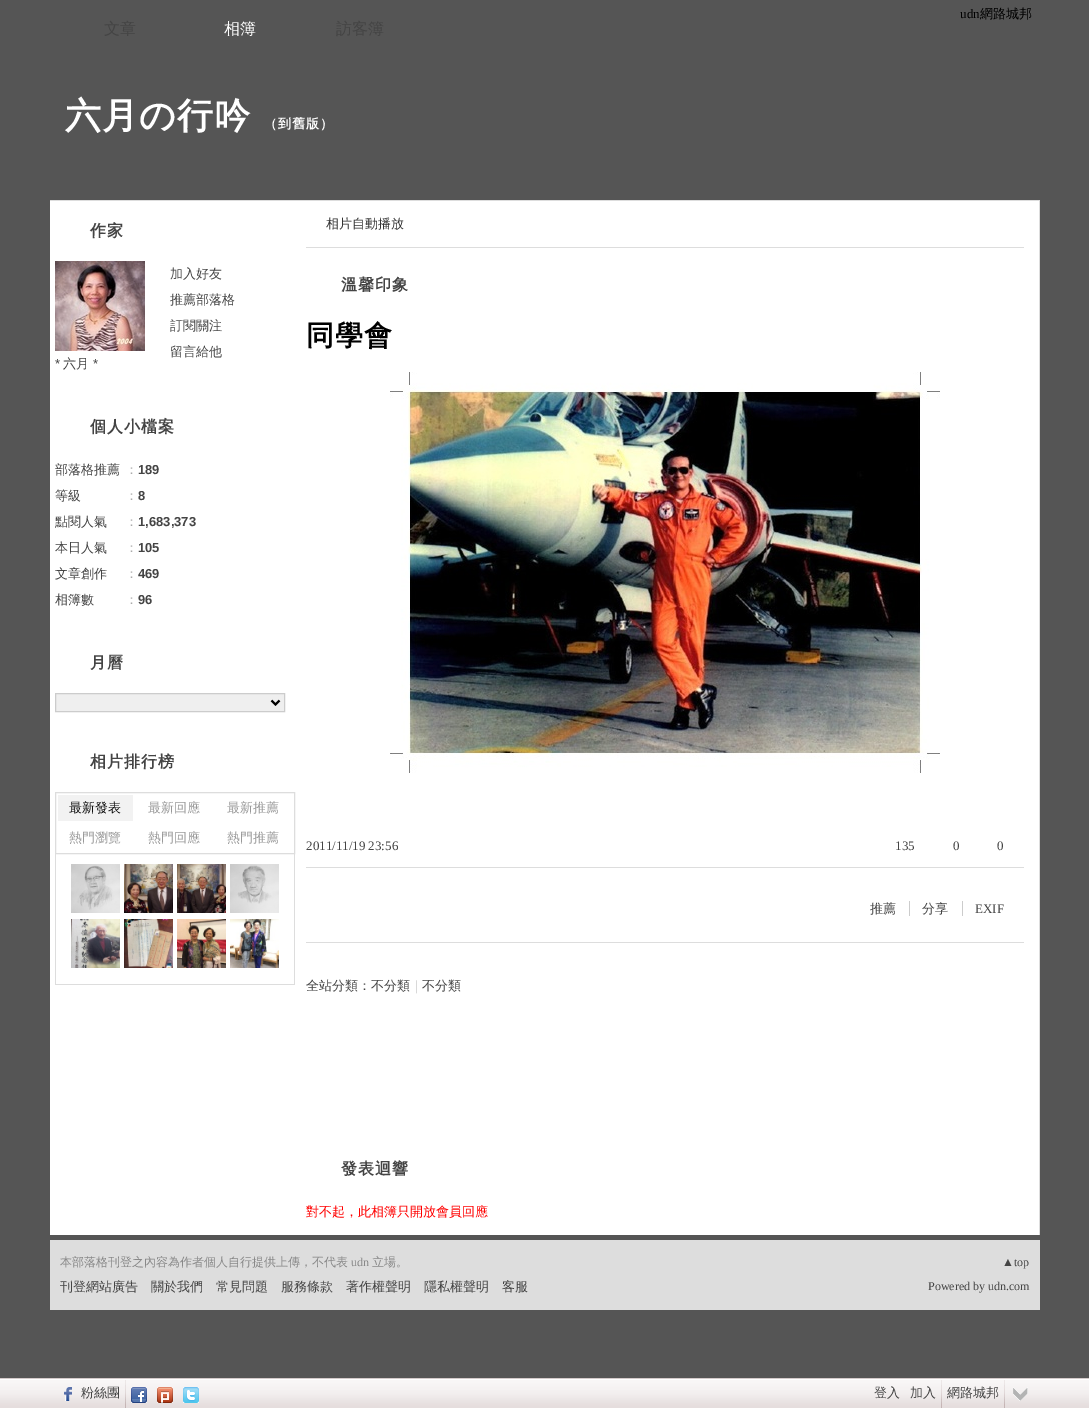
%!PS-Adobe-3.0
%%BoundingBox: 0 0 1089 1408
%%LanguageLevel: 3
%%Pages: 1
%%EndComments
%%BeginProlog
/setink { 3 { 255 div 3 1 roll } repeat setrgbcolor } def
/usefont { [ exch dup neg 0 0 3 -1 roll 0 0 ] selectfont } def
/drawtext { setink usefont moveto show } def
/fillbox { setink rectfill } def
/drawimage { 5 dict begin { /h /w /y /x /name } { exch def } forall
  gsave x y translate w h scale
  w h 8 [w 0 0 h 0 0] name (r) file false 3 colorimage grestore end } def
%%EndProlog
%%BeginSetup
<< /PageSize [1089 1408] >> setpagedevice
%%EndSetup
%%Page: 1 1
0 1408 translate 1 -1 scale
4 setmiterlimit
0 0 1089 1408 85 85 85 fillbox
(udn) 960 18 /LiberationSerif-Regular 13 0 0 0 drawtext
(網路城邦) 980 18 /WenQuanYiZenHei-Medium 13 0 0 0 drawtext
(文章) 104 34 /WenQuanYiZenHei-Medium 16 68 68 68 drawtext
(相簿) 224 34 /WenQuanYiZenHei-Medium 16 255 255 255 drawtext
(訪客簿) 336 34 /WenQuanYiZenHei-Medium 16 68 68 68 drawtext
50 200 990 1 221 221 221 fillbox
/WenQuanYiZenHei-Bold 36 usefont
255 255 255 setink
65 128 moveto 1 0 (六月の行吟) ashow
/WenQuanYiZenHei-Bold 13 usefont
264 128 moveto 1 0 (（到舊版）) ashow
50 201 989 1034 255 255 255 fillbox
/WenQuanYiZenHei-Bold 16 usefont
68 68 68 setink
90 236 moveto 1 0 (作家) ashow
(加入好友) 170 278 /WenQuanYiZenHei-Medium 13 68 68 68 drawtext
(推薦部落格) 170 304 /WenQuanYiZenHei-Medium 13 68 68 68 drawtext
(訂閱關注) 170 330 /WenQuanYiZenHei-Medium 13 68 68 68 drawtext
(留言給他) 170 356 /WenQuanYiZenHei-Medium 13 68 68 68 drawtext
(assets/img1.rgb) 55 261 90 90 drawimage
(*) 55 368 /LiberationSans-Regular 13 68 68 68 drawtext
(六月) 63 368 /WenQuanYiZenHei-Medium 13 68 68 68 drawtext
(*) 93 368 /LiberationSans-Regular 13 68 68 68 drawtext
/WenQuanYiZenHei-Bold 16 usefont
90 432 moveto 1 0 (個人小檔案) ashow
(部落格推薦) 55 474 /WenQuanYiZenHei-Medium 13 68 68 68 drawtext
(：) 125 474 /WenQuanYiZenHei-Medium 13 170 170 170 drawtext
(189) 138 474 /LiberationSans-Bold 13 68 68 68 drawtext
(等級) 55 500 /WenQuanYiZenHei-Medium 13 68 68 68 drawtext
(：) 125 500 /WenQuanYiZenHei-Medium 13 170 170 170 drawtext
(8) 138 500 /LiberationSans-Bold 13 68 68 68 drawtext
(點閱人氣) 55 526 /WenQuanYiZenHei-Medium 13 68 68 68 drawtext
(：) 125 526 /WenQuanYiZenHei-Medium 13 170 170 170 drawtext
(1,683,373) 138 526 /LiberationSans-Bold 13 68 68 68 drawtext
(本日人氣) 55 552 /WenQuanYiZenHei-Medium 13 68 68 68 drawtext
(：) 125 552 /WenQuanYiZenHei-Medium 13 170 170 170 drawtext
(105) 138 552 /LiberationSans-Bold 13 68 68 68 drawtext
(文章創作) 55 578 /WenQuanYiZenHei-Medium 13 68 68 68 drawtext
(：) 125 578 /WenQuanYiZenHei-Medium 13 170 170 170 drawtext
(469) 138 578 /LiberationSans-Bold 13 68 68 68 drawtext
(相簿數) 55 604 /WenQuanYiZenHei-Medium 13 68 68 68 drawtext
(：) 125 604 /WenQuanYiZenHei-Medium 13 170 170 170 drawtext
(96) 138 604 /LiberationSans-Bold 13 68 68 68 drawtext
/WenQuanYiZenHei-Bold 16 usefont
90 668 moveto 1 0 (月曆) ashow
239 239 239 setink
55.5 693.5 moveto 284.5 693.5 lineto 284.5 711.5 lineto 55.5 711.5 lineto closepath gsave fill grestore
204 204 204 setink
stroke
0 0 0 setink
2 setlinewidth
271.5 700.5 moveto 275.5 704.5 lineto 279.5 700.5 lineto stroke
68 68 68 setink
90 767 moveto 1 0 (相片排行榜) ashow
221 221 221 setink
1 setlinewidth
55.5 792.5 239 61 rectstroke
58 795 75 26 242 242 242 fillbox
(最新發表) 69 812 /WenQuanYiZenHei-Medium 13 17 17 17 drawtext
(最新回應) 148 812 /WenQuanYiZenHei-Medium 13 153 153 153 drawtext
(最新推薦) 227 812 /WenQuanYiZenHei-Medium 13 153 153 153 drawtext
(熱門瀏覽) 69 842 /WenQuanYiZenHei-Medium 13 153 153 153 drawtext
(熱門回應) 148 842 /WenQuanYiZenHei-Medium 13 153 153 153 drawtext
(熱門推薦) 227 842 /WenQuanYiZenHei-Medium 13 153 153 153 drawtext
294 854 1 131 221 221 221 fillbox
55 984 240 1 221 221 221 fillbox
55 854 1 131 221 221 221 fillbox
(assets/img2.rgb) 71 864 49 49 drawimage
(assets/img3.rgb) 124 864 49 49 drawimage
(assets/img4.rgb) 177 864 49 49 drawimage
(assets/img5.rgb) 230 864 49 49 drawimage
(assets/img6.rgb) 71 919 49 49 drawimage
(assets/img7.rgb) 124 919 49 49 drawimage
(assets/img8.rgb) 177 919 49 49 drawimage
(assets/img9.rgb) 230 919 49 49 drawimage
1039 201 1 1034 221 221 221 fillbox
306 247 718 1 221 221 221 fillbox
(相片自動播放) 326 228 /WenQuanYiZenHei-Medium 13 51 51 51 drawtext
/WenQuanYiZenHei-Bold 16 usefont
68 68 68 setink
341 290 moveto 1 0 (溫馨印象) ashow
/WenQuanYiZenHei-Bold 28 usefont
0 0 0 setink
306 345 moveto 1 0 (同學會) ashow
(assets/img10.rgb) 390 372 550 401 drawimage
(2011/11/19 23:56) 306 850 /LiberationSerif-Regular 13 68 68 68 drawtext
(135) 895 850 /LiberationSerif-Regular 13 68 68 68 drawtext
(0) 953 850 /LiberationSerif-Regular 13 68 68 68 drawtext
(0) 997 850 /LiberationSerif-Regular 13 68 68 68 drawtext
306 867 718 1 221 221 221 fillbox
(推薦) 870 913 /WenQuanYiZenHei-Medium 13 68 68 68 drawtext
909 901 1 15 204 204 204 fillbox
(分享) 922 913 /WenQuanYiZenHei-Medium 13 68 68 68 drawtext
962 901 1 15 204 204 204 fillbox
(EXIF) 975 913 /LiberationSerif-Regular 13 68 68 68 drawtext
306 942 718 1 221 221 221 fillbox
(全站分類：不分類) 306 990 /WenQuanYiZenHei-Medium 13 68 68 68 drawtext
(｜) 410 990 /WenQuanYiZenHei-Medium 13 204 204 204 drawtext
(不分類) 422 990 /WenQuanYiZenHei-Medium 13 68 68 68 drawtext
/WenQuanYiZenHei-Bold 16 usefont
341 1174 moveto 1 0 (發表迴響) ashow
(對不起，此相簿只開放會員回應) 306 1216 /WenQuanYiZenHei-Medium 13 255 0 0 drawtext
50 1240 990 70 221 221 221 fillbox
(本部落格刊登之內容為作者個人自行提供上傳，不代表) 60 1266 /WenQuanYiZenHei-Medium 12 136 136 136 drawtext
(udn) 351 1266 /LiberationSerif-Regular 12 136 136 136 drawtext
(立場。) 372 1266 /WenQuanYiZenHei-Medium 12 136 136 136 drawtext
(▲top) 1002 1266 /LiberationSerif-Regular 12 68 68 68 drawtext
(刊登網站廣告) 60 1291 /WenQuanYiZenHei-Medium 13 68 68 68 drawtext
(關於我們) 151 1291 /WenQuanYiZenHei-Medium 13 68 68 68 drawtext
(常見問題) 216 1291 /WenQuanYiZenHei-Medium 13 68 68 68 drawtext
(服務條款) 281 1291 /WenQuanYiZenHei-Medium 13 68 68 68 drawtext
(著作權聲明) 346 1291 /WenQuanYiZenHei-Medium 13 68 68 68 drawtext
(隱私權聲明) 424 1291 /WenQuanYiZenHei-Medium 13 68 68 68 drawtext
(客服) 502 1291 /WenQuanYiZenHei-Medium 13 68 68 68 drawtext
(Powered by udn.com) 928 1290 /LiberationSerif-Regular 12 68 68 68 drawtext
(assets/img11.rgb) 0 1378 1089 30 drawimage
(assets/img12.rgb) 64 1387 8 14 drawimage
(粉絲團) 81 1397 /WenQuanYiZenHei-Medium 13 68 68 68 drawtext
(assets/img13.rgb) 125 1380 1 28 drawimage
(assets/img14.rgb) 131 1387 16 16 drawimage
(assets/img15.rgb) 157 1387 16 16 drawimage
(assets/img16.rgb) 183 1387 16 16 drawimage
(登入) 874 1397 /WenQuanYiZenHei-Medium 13 68 68 68 drawtext
(加入) 910 1397 /WenQuanYiZenHei-Medium 13 68 68 68 drawtext
(assets/img13.rgb) 941 1380 1 28 drawimage
(網路城邦) 947 1397 /WenQuanYiZenHei-Medium 13 68 68 68 drawtext
(assets/img13.rgb) 1004 1380 1 28 drawimage
(assets/img17.rgb) 1013 1387 15 14 drawimage
showpage
%%EOF
